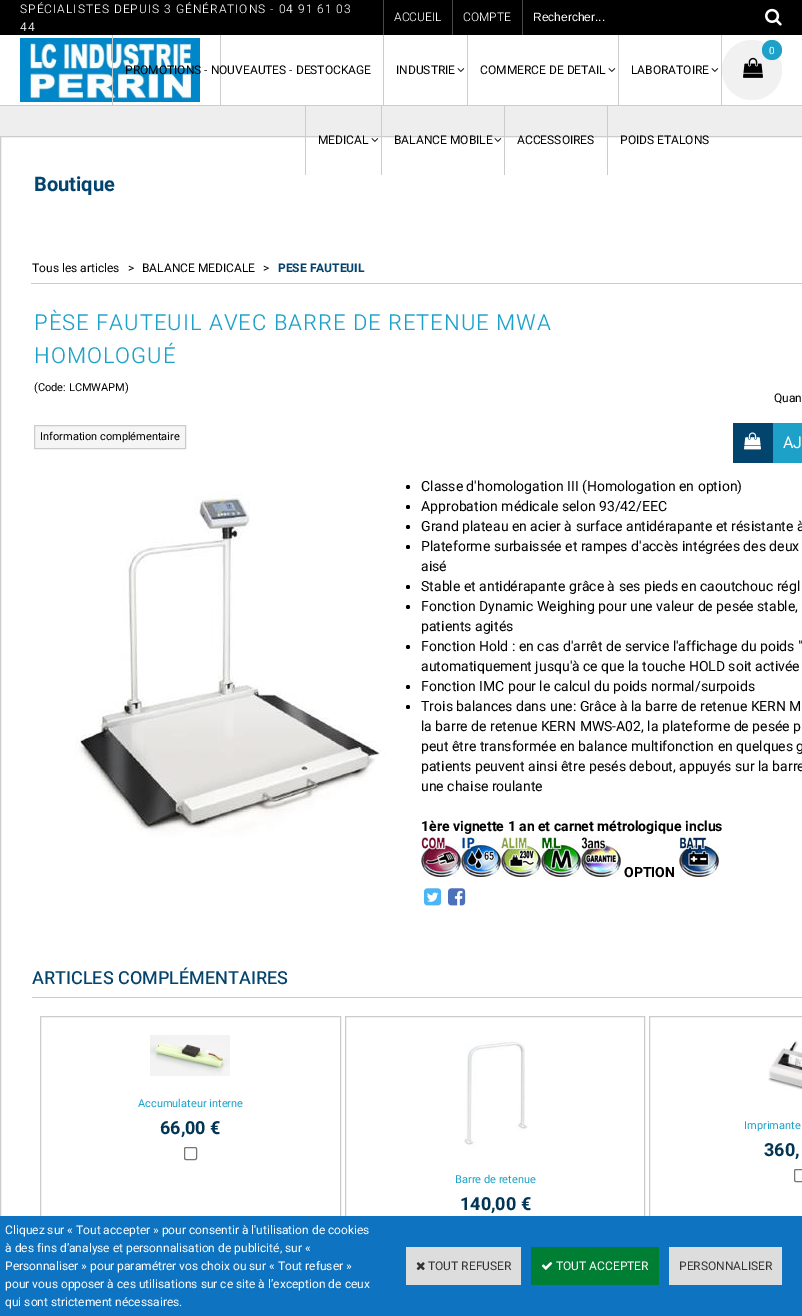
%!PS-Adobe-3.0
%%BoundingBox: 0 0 802 1316
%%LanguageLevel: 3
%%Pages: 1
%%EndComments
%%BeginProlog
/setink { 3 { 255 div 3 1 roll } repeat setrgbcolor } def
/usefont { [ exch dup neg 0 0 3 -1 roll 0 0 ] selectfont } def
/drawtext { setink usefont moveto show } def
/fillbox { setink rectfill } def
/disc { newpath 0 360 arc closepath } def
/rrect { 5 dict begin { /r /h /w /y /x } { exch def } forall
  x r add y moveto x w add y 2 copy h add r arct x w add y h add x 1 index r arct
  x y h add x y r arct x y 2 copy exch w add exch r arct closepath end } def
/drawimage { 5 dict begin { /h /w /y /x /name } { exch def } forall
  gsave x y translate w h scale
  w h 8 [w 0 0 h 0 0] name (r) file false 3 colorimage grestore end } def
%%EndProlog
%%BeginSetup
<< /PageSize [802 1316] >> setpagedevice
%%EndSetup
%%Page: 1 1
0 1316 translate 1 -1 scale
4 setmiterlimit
0 0 802 1316 238 238 238 fillbox
0 35 802 70 255 255 255 fillbox
0 0 802 35 0 0 0 fillbox
0 105 802 1 204 204 204 fillbox
/Heebo-Light 12 usefont
255 255 255 setink
20 13 moveto 1 0 (SPÉCIALISTES DEPUIS 3 GÉNÉRATIONS - 04 91 61 03) ashow
20 31 moveto 1 0 (44) ashow
383 0 1 35 74 73 73 fillbox
(ACCUEIL) 394 21 /Heebo-Light 12 255 255 255 drawtext
452 0 1 35 74 73 73 fillbox
(COMPTE) 463 21 /Heebo-Light 12 255 255 255 drawtext
522 0 1 35 74 73 73 fillbox
(Rechercher...) 533 21 /LiberationSans-Regular 12 255 255 255 drawtext
(assets/img1.rgb) 765 8 17 18 drawimage
220 35 1 70 204 204 204 fillbox
(assets/img2.rgb) 20 38 180 64 drawimage
721 35 1 70 204 204 204 fillbox
241 241 241 setink
752 70 30 disc fill
29 161 201 setink
772 50 10 disc fill
(0) 769 54 /Heebo-Regular 10 255 255 255 drawtext
(assets/img3.rgb) 743 57 20 21 drawimage
112 35 1 70 204 204 204 fillbox
(PROMOTIONS - NOUVEAUTES - DESTOCKAGE) 125 74 /Heebo-Regular 12 0 0 0 drawtext
383 35 1 70 204 204 204 fillbox
(INDUSTRIE) 396 74 /Heebo-Regular 12 0 0 0 drawtext
(assets/img4.rgb) 457 68 8 4 drawimage
467 35 1 70 204 204 204 fillbox
(COMMERCE DE DETAIL) 480 74 /Heebo-Regular 12 0 0 0 drawtext
(assets/img4.rgb) 608 68 8 4 drawimage
618 35 1 70 204 204 204 fillbox
(LABORATOIRE) 631 74 /Heebo-Regular 12 0 0 0 drawtext
(assets/img4.rgb) 711 68 8 4 drawimage
1 137 801 1079 255 255 255 fillbox
204 204 204 setink
0.5 136.5 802 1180 rectstroke
305 105 1 70 204 204 204 fillbox
(MEDICAL) 318 144 /Heebo-Regular 12 0 0 0 drawtext
(assets/img4.rgb) 371 138 8 4 drawimage
381 105 1 70 204 204 204 fillbox
(BALANCE MOBILE) 394 144 /Heebo-Regular 12 0 0 0 drawtext
(assets/img4.rgb) 494 138 8 4 drawimage
504 105 1 70 204 204 204 fillbox
(ACCESSOIRES) 517 144 /Heebo-Regular 12 0 0 0 drawtext
607 105 1 70 204 204 204 fillbox
(POIDS ETALONS) 620 144 /Heebo-Regular 12 0 0 0 drawtext
31 283 771 1 204 204 204 fillbox
(Boutique) 34 191 /Heebo-Bold 20 2 68 109 drawtext
(Tous les articles) 32 272 /Heebo-Regular 12 0 0 0 drawtext
(>) 128 272 /Heebo-Regular 12 0 0 0 drawtext
(BALANCE MEDICALE) 142 272 /Heebo-Regular 12 0 0 0 drawtext
(>) 263 272 /Heebo-Regular 12 0 0 0 drawtext
(PESE FAUTEUIL) 278 272 /Heebo-Bold 12 2 68 109 drawtext
/Heebo-Light 22 usefont
29 161 201 setink
34 330 moveto 1 0 (PÈSE FAUTEUIL AVEC BARRE DE RETENUE MWA) ashow
34 363 moveto 1 0 (HOMOLOGUÉ) ashow
(\(Code: LCMWAPM\)) 34 391 /Heebo-Regular 11 0 0 0 drawtext
245 245 245 setink
34.5 425.5 moveto 185.5 425.5 lineto 185.5 448.5 lineto 34.5 448.5 lineto closepath gsave fill grestore
204 204 204 setink
stroke
(Information complémentaire) 40 440 /Heebo-Regular 11 0 0 0 drawtext
(Quan) 774 402 /Heebo-Regular 12 0 0 0 drawtext
773 423 29 40 29 161 201 fillbox
733 423 40 40 2 68 109 fillbox
(assets/img5.rgb) 744 432 17 18 drawimage
(AJ) 783 448 /Heebo-Regular 16 255 255 255 drawtext
(assets/img6.rgb) 75 493 310 344 drawimage
0 0 0 setink
408 487 2 disc fill
(Classe d'homologation III \(Homologation en option\)) 421 491 /Heebo-Regular 14 0 0 0 drawtext
408 507 2 disc fill
(Approbation médicale selon 93/42/EEC) 421 511 /Heebo-Regular 14 0 0 0 drawtext
408 527 2 disc fill
(Grand plateau en acier à surface antidérapante et résistante à) 421 531 /Heebo-Regular 14 0 0 0 drawtext
408 547 2 disc fill
(Plateforme surbaissée et rampes d'accès intégrées des deux) 421 551 /Heebo-Regular 14 0 0 0 drawtext
(aisé) 421 571 /Heebo-Regular 14 0 0 0 drawtext
408 587 2 disc fill
(Stable et antidérapante grâce à ses pieds en caoutchouc régl) 421 591 /Heebo-Regular 14 0 0 0 drawtext
408 607 2 disc fill
(Fonction Dynamic Weighing pour une valeur de pesée stable,) 421 611 /Heebo-Regular 14 0 0 0 drawtext
(patients agités) 421 631 /Heebo-Regular 14 0 0 0 drawtext
408 647 2 disc fill
(Fonction Hold : en cas d'arrêt de service l'affichage du poids ") 421 651 /Heebo-Regular 14 0 0 0 drawtext
(automatiquement jusqu'à ce que la touche HOLD soit activée) 421 671 /Heebo-Regular 14 0 0 0 drawtext
408 687 2 disc fill
(Fonction IMC pour le calcul du poids normal/surpoids) 421 691 /Heebo-Regular 14 0 0 0 drawtext
408 707 2 disc fill
(Trois balances dans une: Grâce à la barre de retenue KERN M) 421 711 /Heebo-Regular 14 0 0 0 drawtext
(la barre de retenue KERN MWS-A02, la plateforme de pesée p) 421 731 /Heebo-Regular 14 0 0 0 drawtext
(peut être transformée en balance multifonction en quelques g) 421 751 /Heebo-Regular 14 0 0 0 drawtext
(patients peuvent ainsi être pesés debout, appuyés sur la barre) 421 771 /Heebo-Regular 14 0 0 0 drawtext
(une chaise roulante) 421 791 /Heebo-Regular 14 0 0 0 drawtext
(1ère vignette 1 an et carnet métrologique inclus) 421 831 /Heebo-Bold 14 0 0 0 drawtext
(assets/img7.rgb) 421 837 40 40 drawimage
(assets/img8.rgb) 461 837 40 40 drawimage
(assets/img9.rgb) 501 837 40 40 drawimage
(assets/img10.rgb) 541 837 40 40 drawimage
(assets/img11.rgb) 581 837 40 40 drawimage
(OPTION) 624 877 /Heebo-Bold 14 0 0 0 drawtext
(assets/img12.rgb) 679 837 40 40 drawimage
(assets/img13.rgb) 424 888 18 18 drawimage
(assets/img14.rgb) 448 888 18 18 drawimage
32 997 770 1 204 204 204 fillbox
(ARTICLES COMPLÉMENTAIRES) 32 984 /Heebo-Medium 18 2 68 109 drawtext
204 204 204 setink
40.5 1016.5 300 251 rectstroke
(assets/img15.rgb) 150 1035 80 41 drawimage
(Accumulateur interne) 138 1107 /Heebo-Regular 11 29 161 201 drawtext
(66,00 €) 160 1134 /Heebo-Bold 18 2 52 83 drawtext
118 118 118 setink
184.5 1147.5 12 12 1.5 rrect stroke
204 204 204 setink
649.5 1016.5 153 251 rectstroke
(assets/img16.rgb) 768 1040 34 50 drawimage
(Imprimante) 744 1129 /Heebo-Regular 11 29 161 201 drawtext
(360,) 764 1156 /Heebo-Bold 18 2 52 83 drawtext
118 118 118 setink
794.5 1169.5 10 12 1.5 rrect stroke
204 204 204 setink
345.5 1016.5 299 251 rectstroke
(assets/img17.rgb) 464 1041 64 106 drawimage
(Barre de retenue) 455 1183 /Heebo-Regular 11 29 161 201 drawtext
(140,00 €) 460 1210 /Heebo-Bold 18 2 52 83 drawtext
0 1216 802 100 14 115 192 fillbox
(Cliquez sur « Tout accepter » pour consentir à l'utilisation de cookies) 5 1234 /Heebo-Regular 12 255 255 255 drawtext
(à des fins d’analyse et personnalisation de publicité, sur «) 5 1252 /Heebo-Regular 12 255 255 255 drawtext
(Personnaliser » pour paramétrer vos choix ou sur « Tout refuser ») 5 1270 /Heebo-Regular 12 255 255 255 drawtext
(pour vous opposer à ces utilisations sur ce site à l’exception de ceux) 5 1288 /Heebo-Regular 12 255 255 255 drawtext
(qui sont strictement nécessaires.) 5 1306 /Heebo-Regular 12 255 255 255 drawtext
406 1247 115 38 221 221 221 fillbox
(assets/img18.rgb) 416 1262 9 9 drawimage
(TOUT REFUSER) 428 1270 /Heebo-Regular 12 51 51 51 drawtext
531 1247 128 38 0 126 51 fillbox
(assets/img19.rgb) 541 1262 12 8 drawimage
(TOUT ACCEPTER) 556 1270 /Heebo-Regular 12 255 255 255 drawtext
669 1247 113 38 221 221 221 fillbox
(PERSONNALISER) 679 1270 /Heebo-Regular 12 51 51 51 drawtext
showpage
%%EOF
